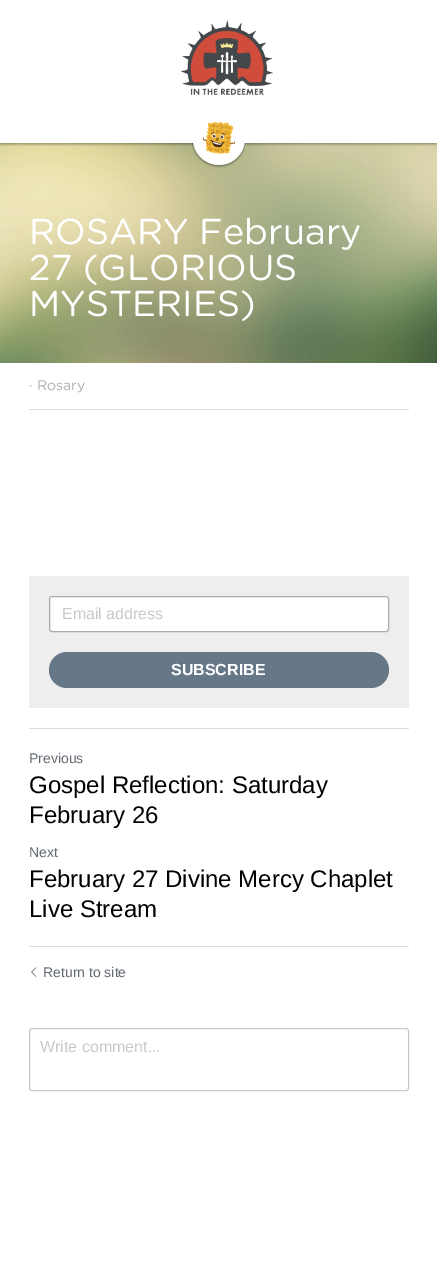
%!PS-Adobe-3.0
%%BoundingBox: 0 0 437 1288
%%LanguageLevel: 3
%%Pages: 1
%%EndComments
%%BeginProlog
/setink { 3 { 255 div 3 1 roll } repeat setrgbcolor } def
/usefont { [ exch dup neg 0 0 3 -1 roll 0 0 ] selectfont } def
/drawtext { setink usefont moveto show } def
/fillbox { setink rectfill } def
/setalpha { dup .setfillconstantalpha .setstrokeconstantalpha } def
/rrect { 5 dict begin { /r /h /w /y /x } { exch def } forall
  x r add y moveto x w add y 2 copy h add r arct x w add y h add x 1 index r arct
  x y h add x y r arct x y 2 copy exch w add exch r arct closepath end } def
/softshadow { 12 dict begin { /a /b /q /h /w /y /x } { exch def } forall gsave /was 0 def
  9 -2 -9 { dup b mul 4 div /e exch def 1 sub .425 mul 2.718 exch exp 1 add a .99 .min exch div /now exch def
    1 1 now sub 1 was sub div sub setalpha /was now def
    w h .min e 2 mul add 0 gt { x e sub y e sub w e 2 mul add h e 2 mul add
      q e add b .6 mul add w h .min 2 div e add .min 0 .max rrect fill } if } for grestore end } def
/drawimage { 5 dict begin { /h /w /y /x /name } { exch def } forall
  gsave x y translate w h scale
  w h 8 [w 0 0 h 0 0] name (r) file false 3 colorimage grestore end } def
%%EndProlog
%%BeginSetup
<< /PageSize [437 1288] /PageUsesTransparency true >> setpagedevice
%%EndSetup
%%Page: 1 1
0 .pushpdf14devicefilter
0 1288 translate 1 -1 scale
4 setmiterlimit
0 0 437 1288 255 255 255 fillbox
(assets/img4.rgb) 0 143 437 220 drawimage
gsave
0 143 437 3 rectclip
0 0 0 setink
0 1 437 143 0 1.5 0.4 softshadow
grestore
(assets/img1.rgb) 181 20 92 76 drawimage
(assets/img2.rgb) 192 143 53 25 drawimage
(assets/img3.rgb) 203 122 32 32 drawimage
(ROSARY February) 29 244 /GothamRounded-Regular 36 255 255 255 drawtext
(27 \(GLORIOUS) 29 280 /GothamRounded-Regular 36 255 255 255 drawtext
(MYSTERIES\)) 29 316 /GothamRounded-Regular 36 255 255 255 drawtext
29 409 380 1 221 221 221 fillbox
(· Rosary) 29 390 /GothamRounded-Regular 14 169 174 178 drawtext
29 576 380 132 238 238 238 fillbox
255 255 255 setink
49.5 596.5 339 35 2.5 rrect gsave fill grestore
170 170 170 setink
stroke
(Email address) 62 619 /LiberationSans-Regular 16 198 201 205 drawtext
102 119 136 setink
49 652 340 36 18 rrect fill
(SUBSCRIBE) 171 675 /LiberationSans-Bold 16 255 255 255 drawtext
29 728 380 1 221 221 221 fillbox
(Previous) 29 763 /LiberationSans-Regular 14 99 105 114 drawtext
(Gospel Reflection: Saturday) 29 793 /LiberationSans-Regular 24 0 0 0 drawtext
(February 26) 29 823 /LiberationSans-Regular 24 0 0 0 drawtext
(Next) 29 857 /LiberationSans-Regular 14 99 105 114 drawtext
(February 27 Divine Mercy Chaplet) 29 887 /LiberationSans-Regular 24 0 0 0 drawtext
(Live Stream) 29 917 /LiberationSans-Regular 24 0 0 0 drawtext
29 946 380 1 221 221 221 fillbox
(assets/img5.rgb) 31 967 6 10 drawimage
(Return to site) 43 977 /LiberationSans-Regular 14 99 105 114 drawtext
198 201 205 setink
29.5 1028.5 379 62 2.5 rrect stroke
(Write comment...) 40 1052 /LiberationSans-Regular 16 198 201 205 drawtext
.poppdf14devicefilter showpage
%%EOF
